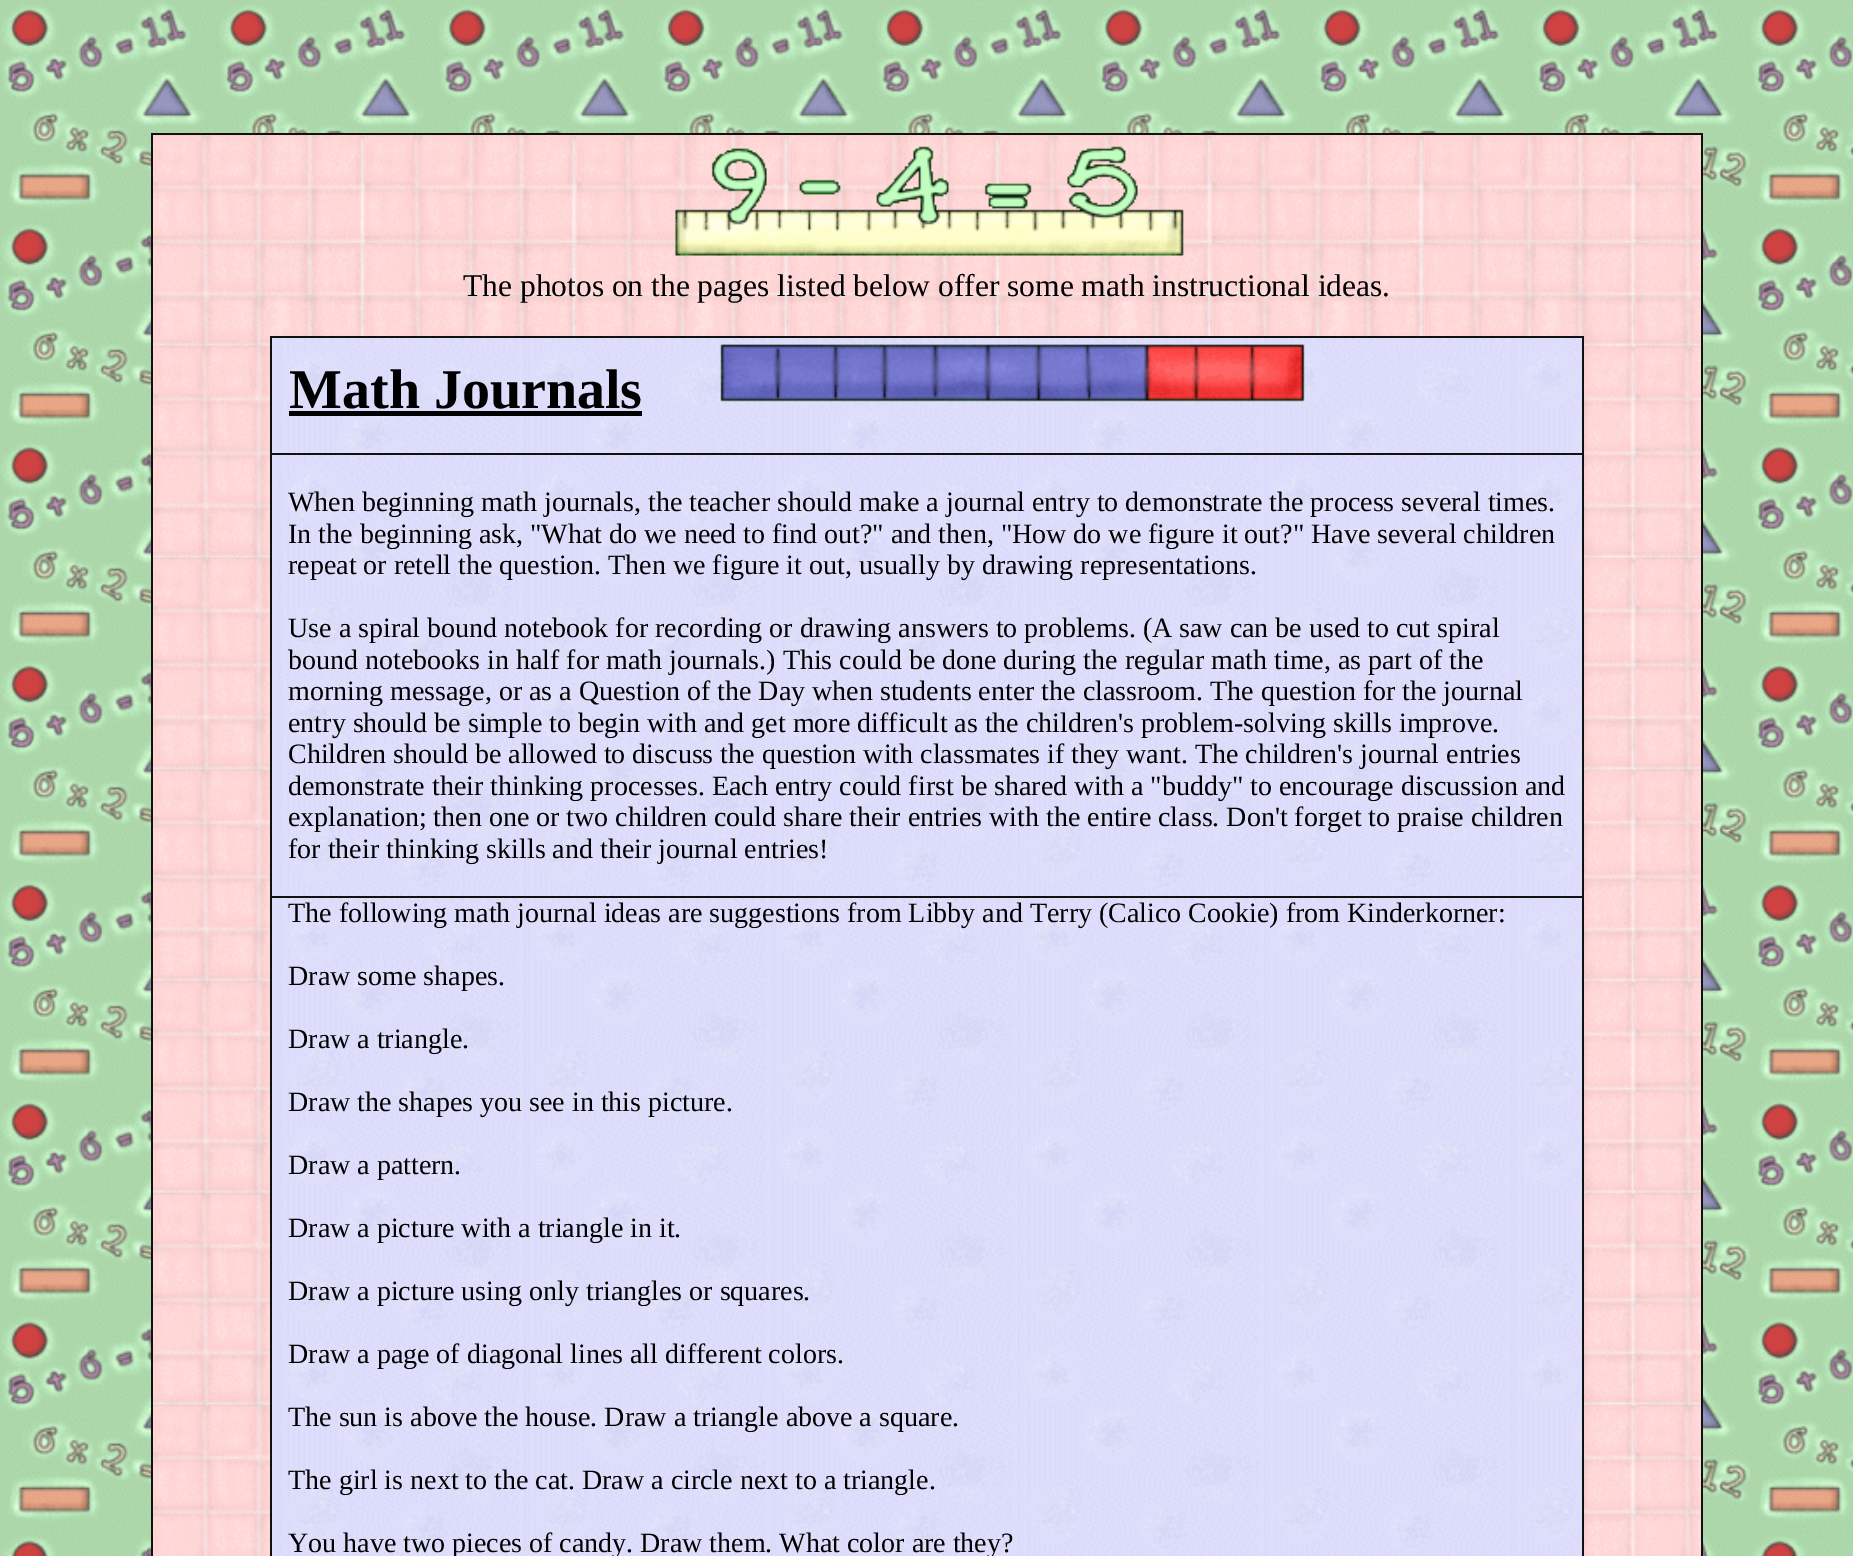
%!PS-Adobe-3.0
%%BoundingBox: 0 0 1853 1556
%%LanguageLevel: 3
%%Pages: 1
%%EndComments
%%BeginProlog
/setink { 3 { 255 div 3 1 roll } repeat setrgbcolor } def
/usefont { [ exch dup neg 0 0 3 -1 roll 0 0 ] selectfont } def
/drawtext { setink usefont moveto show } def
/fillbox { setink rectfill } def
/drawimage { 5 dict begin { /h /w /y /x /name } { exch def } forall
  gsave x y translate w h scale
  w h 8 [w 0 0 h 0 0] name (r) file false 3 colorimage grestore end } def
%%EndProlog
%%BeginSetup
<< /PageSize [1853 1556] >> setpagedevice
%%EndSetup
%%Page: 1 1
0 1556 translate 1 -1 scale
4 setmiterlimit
0 0 1853 1556 255 255 255 fillbox
(assets/img1.rgb) 0 0 1853 1556 drawimage
151 133 1552 2 17 17 17 fillbox
1701 133 2 1423 17 17 17 fillbox
151 133 2 1423 17 17 17 fillbox
(assets/img2.rgb) 153 135 1548 1421 drawimage
(assets/img3.rgb) 675 146 509 110 drawimage
(The photos on the pages listed below offer some math instructional ideas.) 463 296 /LiberationSerif-Regular 31.5 0 0 0 drawtext
270 336 1314 2 17 17 17 fillbox
1582 336 2 1220 17 17 17 fillbox
270 336 2 1220 17 17 17 fillbox
(assets/img4.rgb) 272 338 1310 115 drawimage
(Math Journals) 289 408 /LiberationSerif-Bold 56 0 0 0 drawtext
289 411 353 5 0 0 0 fillbox
(assets/img5.rgb) 720 344 585 58 drawimage
(assets/img6.rgb) 272 455 1310 441 drawimage
270 453 1314 2 17 17 17 fillbox
(When beginning math journals, the teacher should make a journal entry to demonstrate the process several times.) 288 511 /LiberationSerif-Regular 28 0 0 0 drawtext
(In the beginning ask, "What do we need to find out?" and then, "How do we figure it out?" Have several children) 288 543 /LiberationSerif-Regular 28 0 0 0 drawtext
(repeat or retell the question. Then we figure it out, usually by drawing representations.) 288 574 /LiberationSerif-Regular 28 0 0 0 drawtext
(Use a spiral bound notebook for recording or drawing answers to problems. \(A saw can be used to cut spiral) 288 637 /LiberationSerif-Regular 28 0 0 0 drawtext
(bound notebooks in half for math journals.\) This could be done during the regular math time, as part of the) 288 669 /LiberationSerif-Regular 28 0 0 0 drawtext
(morning message, or as a Question of the Day when students enter the classroom. The question for the journal) 288 700 /LiberationSerif-Regular 28 0 0 0 drawtext
(entry should be simple to begin with and get more difficult as the children's problem-solving skills improve.) 288 732 /LiberationSerif-Regular 28 0 0 0 drawtext
(Children should be allowed to discuss the question with classmates if they want. The children's journal entries) 288 763 /LiberationSerif-Regular 28 0 0 0 drawtext
(demonstrate their thinking processes. Each entry could first be shared with a "buddy" to encourage discussion and) 288 795 /LiberationSerif-Regular 28 0 0 0 drawtext
(explanation; then one or two children could share their entries with the entire class. Don't forget to praise children) 288 826 /LiberationSerif-Regular 28 0 0 0 drawtext
(for their thinking skills and their journal entries!) 288 858 /LiberationSerif-Regular 28 0 0 0 drawtext
(assets/img7.rgb) 272 898 1310 658 drawimage
270 896 1314 2 17 17 17 fillbox
(The following math journal ideas are suggestions from Libby and Terry \(Calico Cookie\) from Kinderkorner:) 288 922 /LiberationSerif-Regular 28 0 0 0 drawtext
(Draw some shapes.) 288 985 /LiberationSerif-Regular 28 0 0 0 drawtext
(Draw a triangle.) 288 1048 /LiberationSerif-Regular 28 0 0 0 drawtext
(Draw the shapes you see in this picture.) 288 1111 /LiberationSerif-Regular 28 0 0 0 drawtext
(Draw a pattern.) 288 1174 /LiberationSerif-Regular 28 0 0 0 drawtext
(Draw a picture with a triangle in it.) 288 1237 /LiberationSerif-Regular 28 0 0 0 drawtext
(Draw a picture using only triangles or squares.) 288 1300 /LiberationSerif-Regular 28 0 0 0 drawtext
(Draw a page of diagonal lines all different colors.) 288 1363 /LiberationSerif-Regular 28 0 0 0 drawtext
(The sun is above the house. Draw a triangle above a square.) 288 1426 /LiberationSerif-Regular 28 0 0 0 drawtext
(The girl is next to the cat. Draw a circle next to a triangle.) 288 1489 /LiberationSerif-Regular 28 0 0 0 drawtext
(You have two pieces of candy. Draw them. What color are they?) 288 1552 /LiberationSerif-Regular 28 0 0 0 drawtext
showpage
%%EOF
